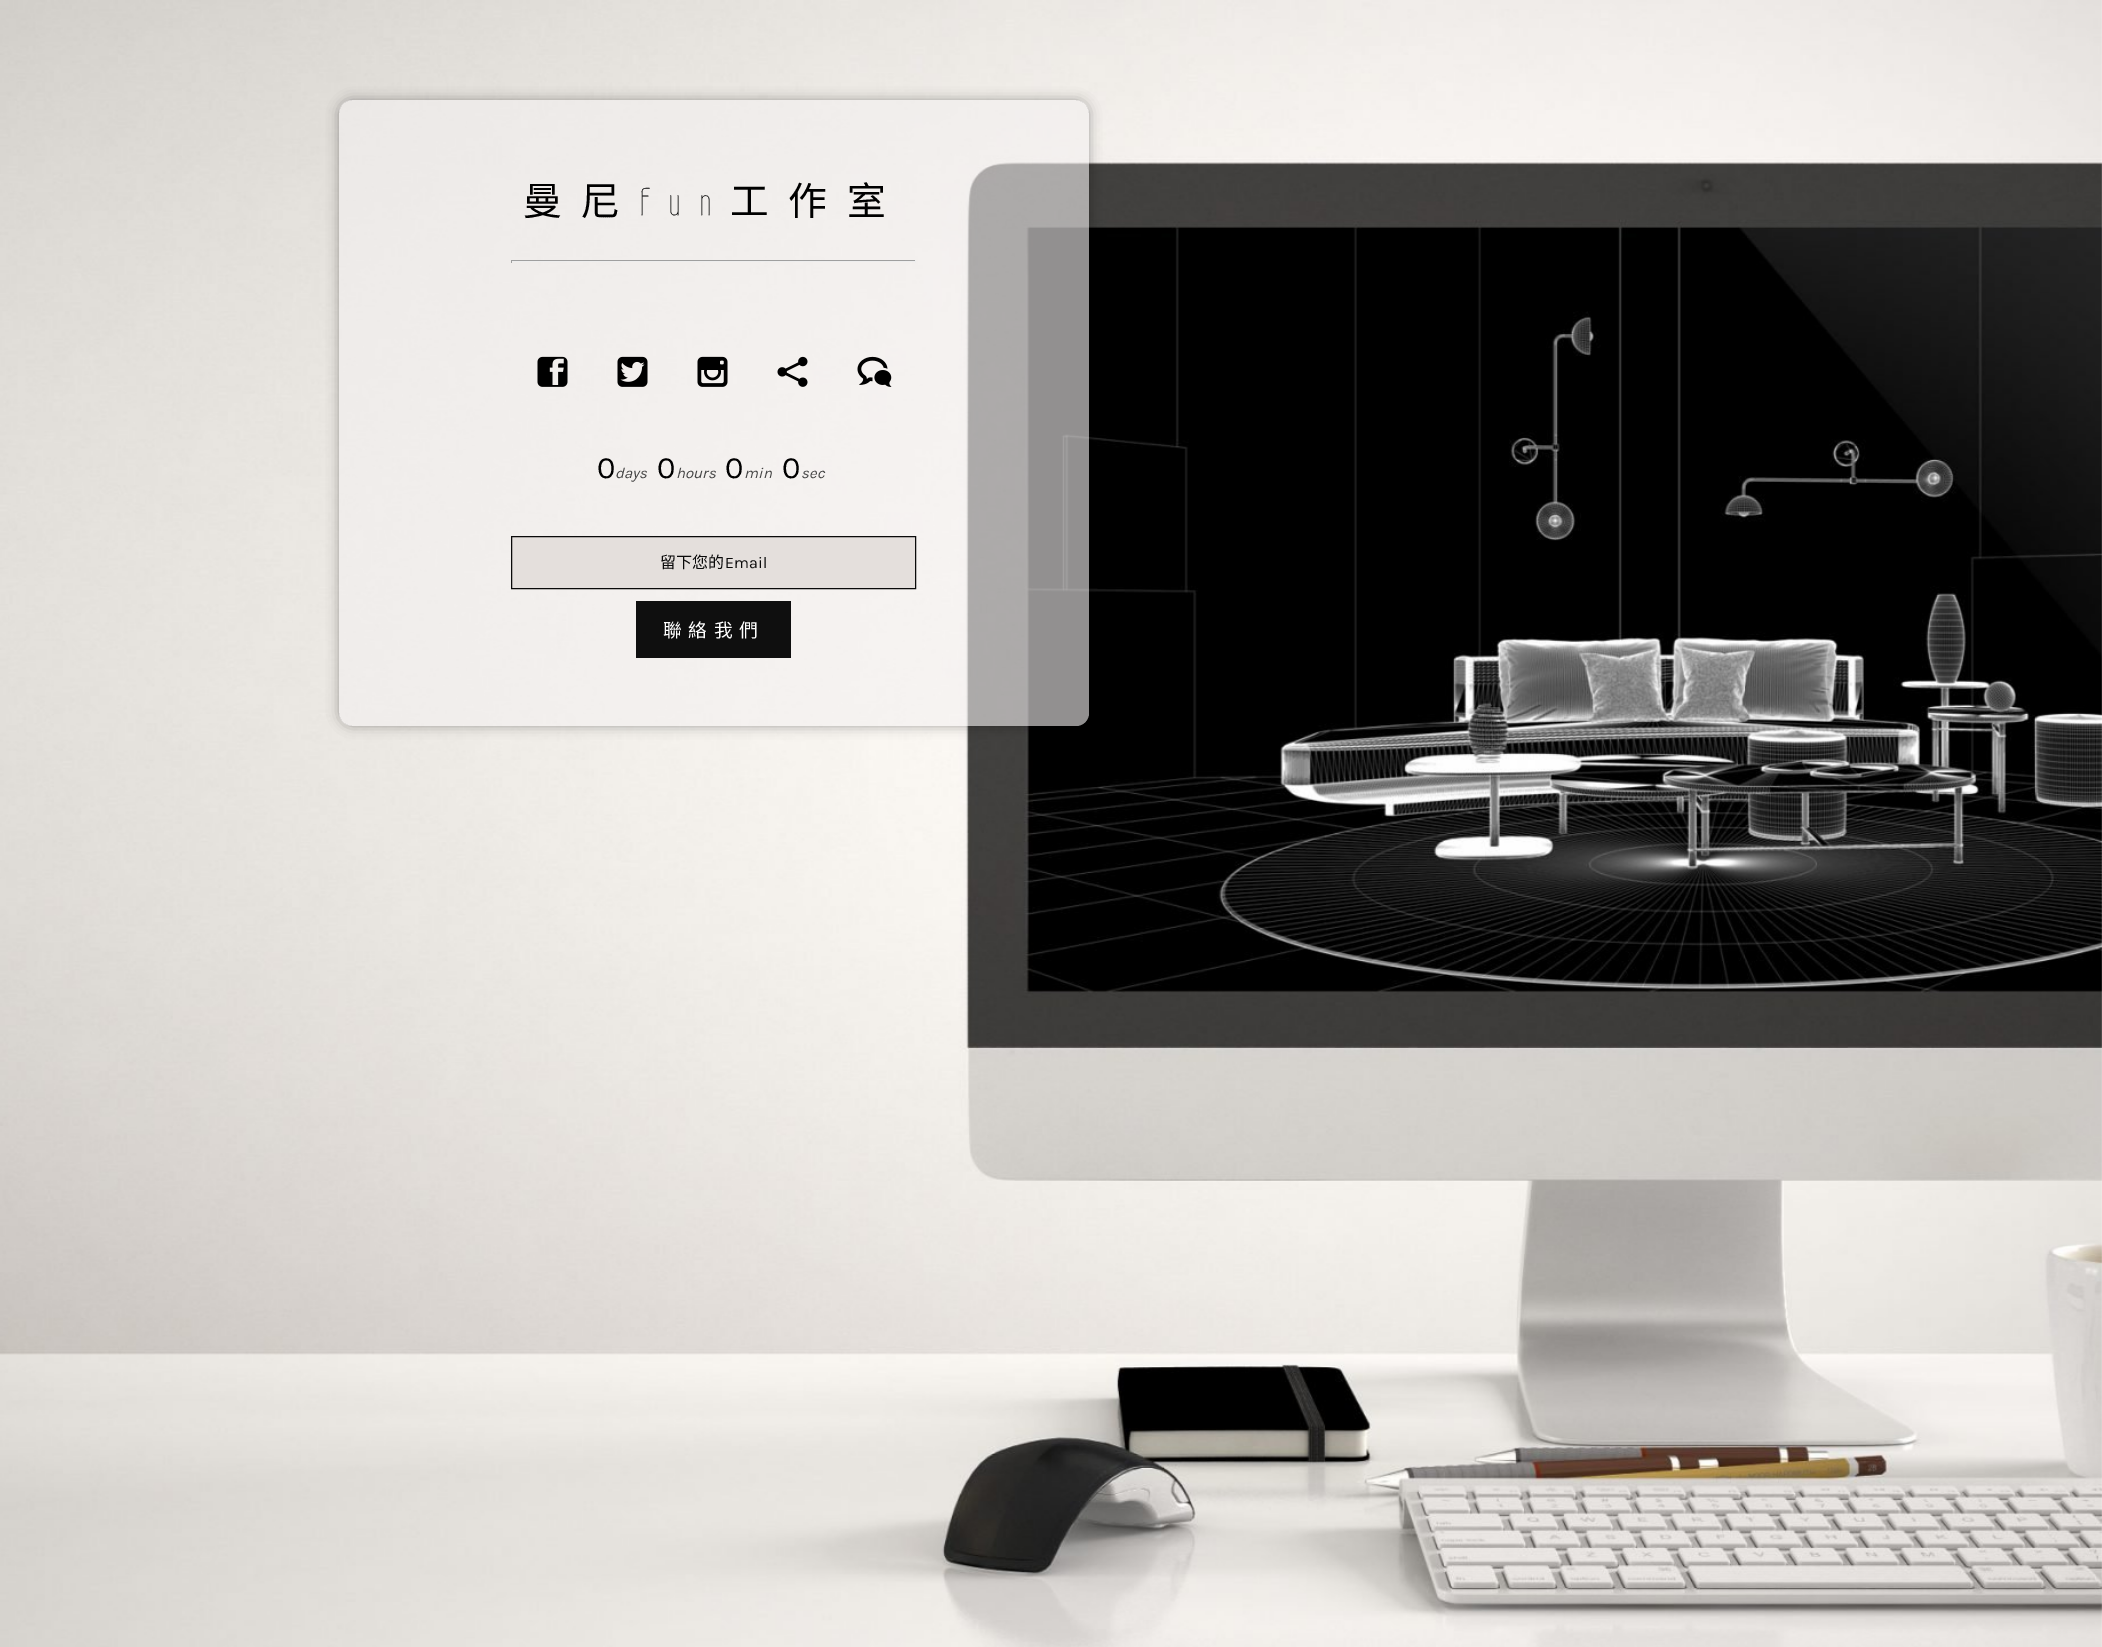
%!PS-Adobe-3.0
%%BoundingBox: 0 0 2102 1647
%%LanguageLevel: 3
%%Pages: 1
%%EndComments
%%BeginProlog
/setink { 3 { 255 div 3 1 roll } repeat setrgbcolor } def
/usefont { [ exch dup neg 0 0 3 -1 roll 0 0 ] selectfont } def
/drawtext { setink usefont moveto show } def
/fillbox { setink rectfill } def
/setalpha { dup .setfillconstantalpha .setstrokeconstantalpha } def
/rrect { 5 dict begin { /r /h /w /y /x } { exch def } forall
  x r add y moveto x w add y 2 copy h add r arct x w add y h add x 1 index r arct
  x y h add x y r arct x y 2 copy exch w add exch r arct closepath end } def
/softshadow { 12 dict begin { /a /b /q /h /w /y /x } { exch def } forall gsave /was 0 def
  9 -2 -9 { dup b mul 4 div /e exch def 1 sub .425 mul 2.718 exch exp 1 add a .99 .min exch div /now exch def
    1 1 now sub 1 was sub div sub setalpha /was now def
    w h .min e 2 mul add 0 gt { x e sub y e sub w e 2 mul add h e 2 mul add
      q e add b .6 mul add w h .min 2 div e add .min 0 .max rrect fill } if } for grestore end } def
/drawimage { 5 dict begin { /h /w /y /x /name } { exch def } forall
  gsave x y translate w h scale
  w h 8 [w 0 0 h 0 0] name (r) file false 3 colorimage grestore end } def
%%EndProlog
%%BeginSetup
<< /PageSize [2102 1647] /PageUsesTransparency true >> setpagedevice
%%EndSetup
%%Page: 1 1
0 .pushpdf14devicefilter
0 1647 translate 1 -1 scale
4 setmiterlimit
0 0 2102 1647 255 255 255 fillbox
(assets/img1.rgb) 0 0 2102 1647 drawimage
gsave
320 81 moveto 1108 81 lineto 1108 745 lineto 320 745 lineto closepath 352 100 moveto 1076 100 lineto 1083 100 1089 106 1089 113 curveto 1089 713 lineto 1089 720 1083 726 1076 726 curveto 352 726 lineto 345 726 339 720 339 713 curveto 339 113 lineto 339 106 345 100 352 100 curveto closepath eoclip newpath
0 0 0 setink
339 100 750 626 13 6 0.33 softshadow
grestore
0.6 setalpha
243 240 240 setink
339 100 750 626 13 rrect fill
/NotoSansCJKTC-Regular 38.75 usefont
1 setalpha
0 0 0 setink
523 215 moveto 19.5 0 (曼尼) ashow
/WireOne-Regular 38.75 usefont
640 215 moveto 19.5 0 (Fun) ashow
/NotoSansCJKTC-Regular 38.75 usefont
730 215 moveto 19.5 0 (工作室) ashow
511 260 405 1 159 159 159 fillbox
915 260 1 3 238 238 238 fillbox
511 261 405 1 238 238 238 fillbox
511 260 1 3 159 159 159 fillbox
(assets/img2.rgb) 537 356 31 31 drawimage
(assets/img3.rgb) 617 356 31 31 drawimage
(assets/img4.rgb) 697 356 31 31 drawimage
(assets/img5.rgb) 777 356 31 31 drawimage
(assets/img6.rgb) 857 356 35 31 drawimage
(0) 597 478 /Karla-Regular 31 0 0 0 drawtext
(days) 615 478 /Karla-Italic 15 68 68 68 drawtext
(0) 657 478 /Karla-Regular 31 0 0 0 drawtext
(hours) 676 478 /Karla-Italic 15 68 68 68 drawtext
(0) 725 478 /Karla-Regular 31 0 0 0 drawtext
(min) 744 478 /Karla-Italic 15 68 68 68 drawtext
(0) 782 478 /Karla-Regular 31 0 0 0 drawtext
(sec) 801 478 /Karla-Italic 15 68 68 68 drawtext
228 223 220 setink
511.5 536.5 moveto 915.5 536.5 lineto 915.5 588.5 lineto 511.5 588.5 lineto closepath gsave fill grestore
10 10 10 setink
stroke
(留下您的) 660 568 /NotoSansCJKTC-Regular 16 10 10 10 drawtext
(Email) 725 568 /Karla-Regular 16 10 10 10 drawtext
636 601 155 57 15 15 15 fillbox
/NotoSansCJKTC-Regular 18.75 usefont
255 255 255 setink
663 637 moveto 6.5 0 (聯絡我們) ashow
.poppdf14devicefilter showpage
%%EOF
